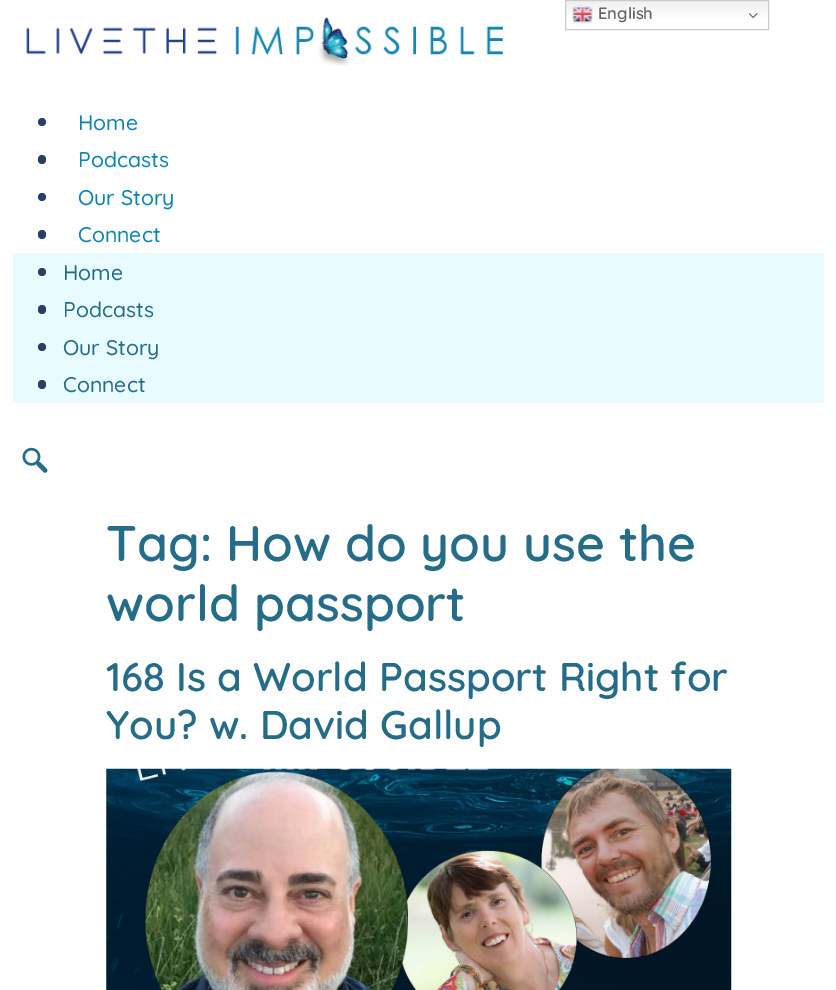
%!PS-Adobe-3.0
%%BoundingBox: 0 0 836 990
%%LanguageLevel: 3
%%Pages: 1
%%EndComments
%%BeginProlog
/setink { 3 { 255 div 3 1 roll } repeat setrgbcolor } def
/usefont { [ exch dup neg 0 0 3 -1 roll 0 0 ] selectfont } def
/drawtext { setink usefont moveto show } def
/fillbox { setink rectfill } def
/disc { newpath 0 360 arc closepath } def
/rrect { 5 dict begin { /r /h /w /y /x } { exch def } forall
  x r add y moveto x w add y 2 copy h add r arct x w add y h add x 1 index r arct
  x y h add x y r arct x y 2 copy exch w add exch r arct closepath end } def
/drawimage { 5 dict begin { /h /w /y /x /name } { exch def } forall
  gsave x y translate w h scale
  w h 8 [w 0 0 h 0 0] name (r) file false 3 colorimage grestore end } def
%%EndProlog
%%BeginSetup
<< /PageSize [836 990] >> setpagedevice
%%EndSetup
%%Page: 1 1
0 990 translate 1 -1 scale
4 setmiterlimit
0 0 836 990 255 255 255 fillbox
gsave 566 1 moveto 768 1 lineto 768 18 lineto 566 18 lineto closepath clip newpath
<< /ShadingType 2 /ColorSpace /DeviceRGB /Coords [667 0 667 30] /Extend [true true] /Function << /FunctionType 3 /Domain [0 1] /Functions [<< /FunctionType 2 /Domain [0 1] /C0 [0.937 0.937 0.937] /C1 [1 1 1] /N 1 >> << /FunctionType 2 /Domain [0 1] /C0 [1 1 1] /C1 [1 1 1] /N 1 >>] /Bounds [0.7] /Encode [0 1 0 1] >> >> shfill grestore
204 204 204 setink
565.5 0.5 203 29 rectstroke
(assets/img1.rgb) 572 6 21 18 drawimage
(English) 598 19 /Quicksand-SemiBold 16.5 102 102 102 drawtext
(assets/img2.rgb) 749 13 9 6 drawimage
(assets/img3.rgb) 26 17 477 49 drawimage
40 64 105 setink
42 122 4 disc fill
(Home) 78 130 /Quicksand-Medium 21.25 10 132 176 drawtext
40 64 105 setink
38 155 8 9 4 rrect fill
(Podcasts) 78 167 /Quicksand-Medium 21.25 10 132 176 drawtext
40 64 105 setink
42 197 4 disc fill
(Our Story) 78 205 /Quicksand-Medium 21.25 10 132 176 drawtext
40 64 105 setink
38 230 8 9 4 rrect fill
(Connect) 78 242 /Quicksand-Medium 21.25 10 132 176 drawtext
13 253 811 150 232 251 255 fillbox
40 64 105 setink
42 272 4 disc fill
(Home) 63 280 /Quicksand-Medium 21.25 37 108 136 drawtext
40 64 105 setink
38 305 8 9 4 rrect fill
(Podcasts) 63 317 /Quicksand-Medium 21.25 37 108 136 drawtext
40 64 105 setink
42 347 4 disc fill
(Our Story) 63 355 /Quicksand-Medium 21.25 37 108 136 drawtext
40 64 105 setink
38 380 8 9 4 rrect fill
(Connect) 63 392 /Quicksand-Medium 21.25 37 108 136 drawtext
(assets/img4.rgb) 22 447 26 26 drawimage
(Tag: How do you use the) 106 561 /Quicksand-SemiBold 50 37 108 136 drawtext
(world passport) 106 621 /Quicksand-SemiBold 50 37 108 136 drawtext
(168 Is a World Passport Right for) 106 691 /Quicksand-SemiBold 40 37 108 136 drawtext
(You? w. David Gallup) 106 739 /Quicksand-SemiBold 40 37 108 136 drawtext
(assets/img5.rgb) 106 768 626 222 drawimage
showpage
%%EOF
